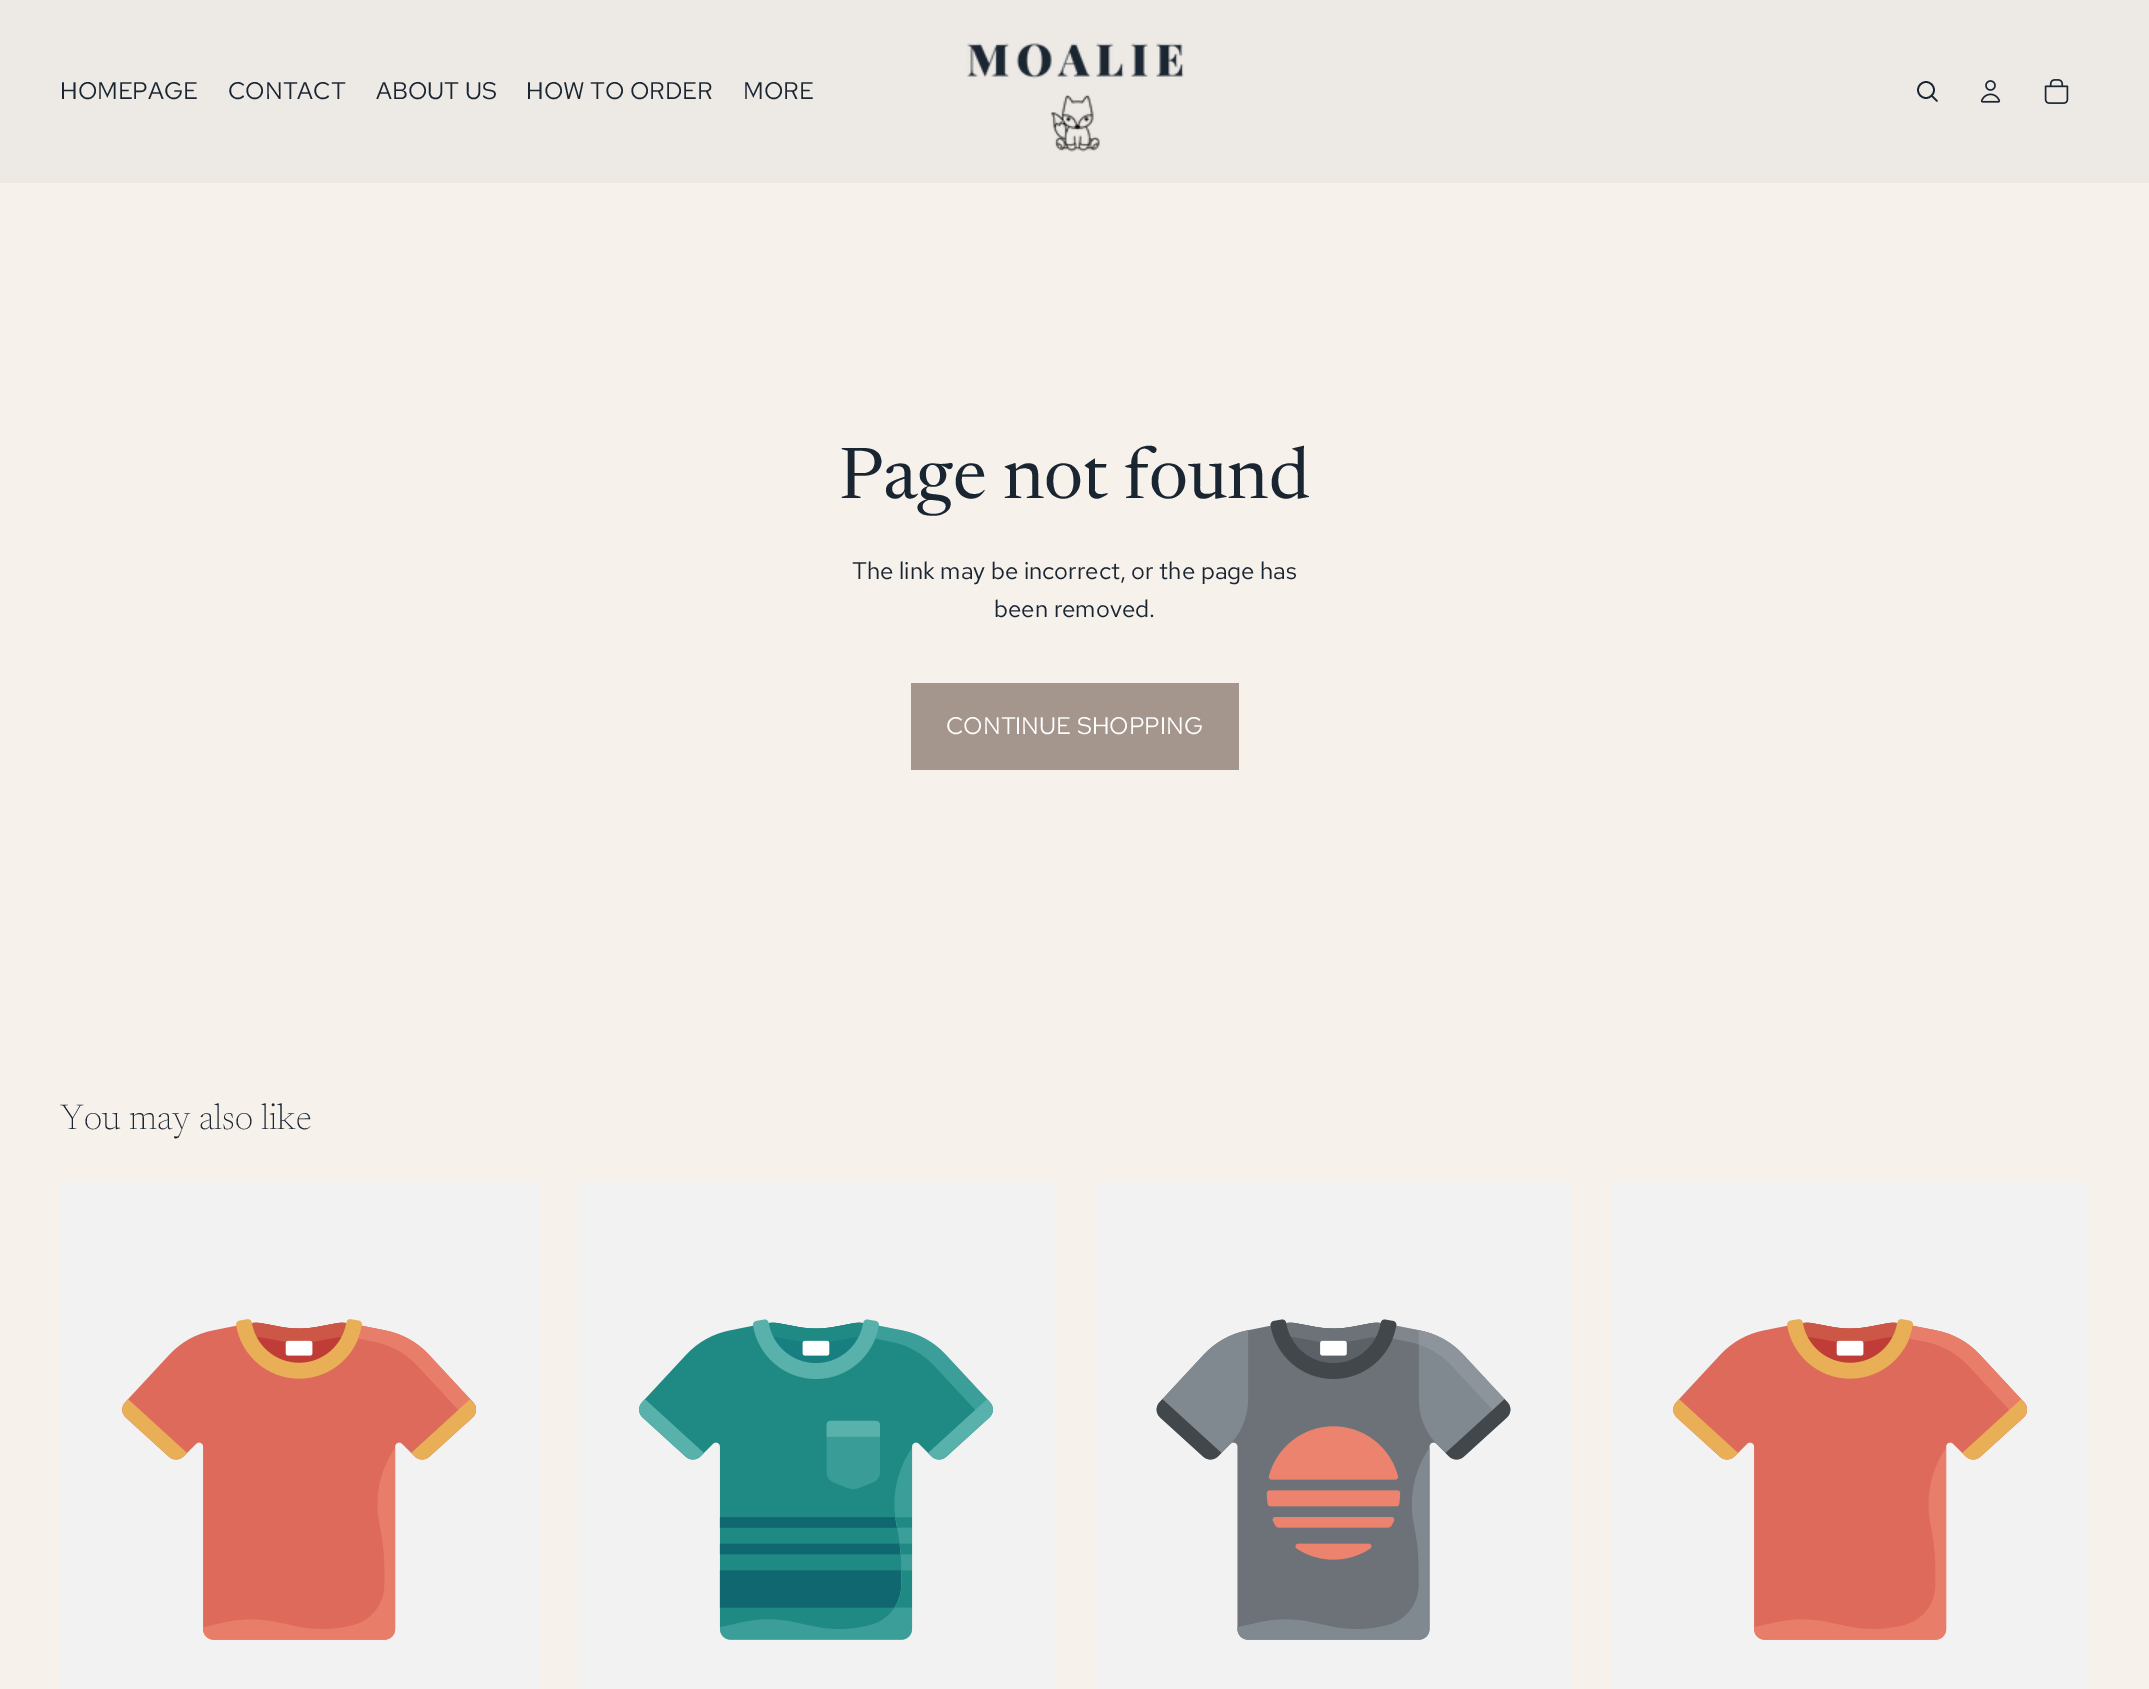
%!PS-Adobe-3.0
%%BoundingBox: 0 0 2149 1689
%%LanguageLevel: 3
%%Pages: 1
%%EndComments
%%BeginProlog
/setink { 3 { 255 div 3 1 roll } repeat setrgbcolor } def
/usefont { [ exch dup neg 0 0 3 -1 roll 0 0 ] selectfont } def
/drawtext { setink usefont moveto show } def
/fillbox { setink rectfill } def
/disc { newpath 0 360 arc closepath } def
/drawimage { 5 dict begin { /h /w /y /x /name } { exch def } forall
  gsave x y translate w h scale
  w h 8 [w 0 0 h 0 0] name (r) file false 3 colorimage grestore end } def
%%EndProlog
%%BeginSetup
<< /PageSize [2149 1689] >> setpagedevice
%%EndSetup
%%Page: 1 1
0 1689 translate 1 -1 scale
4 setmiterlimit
0 0 2149 1689 247 241 236 fillbox
0 0 2149 183 237 234 229 fillbox
(HOMEPAGE) 60 99 /RedHatText-Regular 24 26 37 50 drawtext
(CONTACT) 228 99 /RedHatText-Regular 24 26 37 50 drawtext
(ABOUT US) 376 99 /RedHatText-Regular 24 26 37 50 drawtext
(HOW TO ORDER) 526 99 /RedHatText-Regular 24 26 37 50 drawtext
(MORE) 743 99 /RedHatText-Regular 24 26 37 50 drawtext
(assets/img1.rgb) 967 43 217 109 drawimage
1.7 setlinewidth
1926 90 8 disc stroke
1 setlinecap
1 setlinejoin
1931.5 95.5 moveto 1937 101 lineto stroke
(assets/img2.rgb) 1980 80 21 23 drawimage
(assets/img3.rgb) 2044 79 25 25 drawimage
(Page not found) 839 498 /Newsreader-Regular 72 26 37 50 drawtext
(The link may be incorrect, or the page has) 852 579 /RedHatText-Regular 24 26 37 50 drawtext
(been removed.) 994 617 /RedHatText-Regular 24 26 37 50 drawtext
911 683 328 87 164 150 141 fillbox
(CONTINUE SHOPPING) 946 734 /RedHatText-Regular 24 255 255 255 drawtext
(You may also like) 60 1129 /Newsreader-ExtraLight 36 26 37 50 drawtext
(assets/img4.rgb) 60 1182 479 507 drawimage
(assets/img5.rgb) 578 1182 478 507 drawimage
(assets/img6.rgb) 1095 1182 477 507 drawimage
(assets/img4.rgb) 1611 1182 479 507 drawimage
showpage
%%EOF
